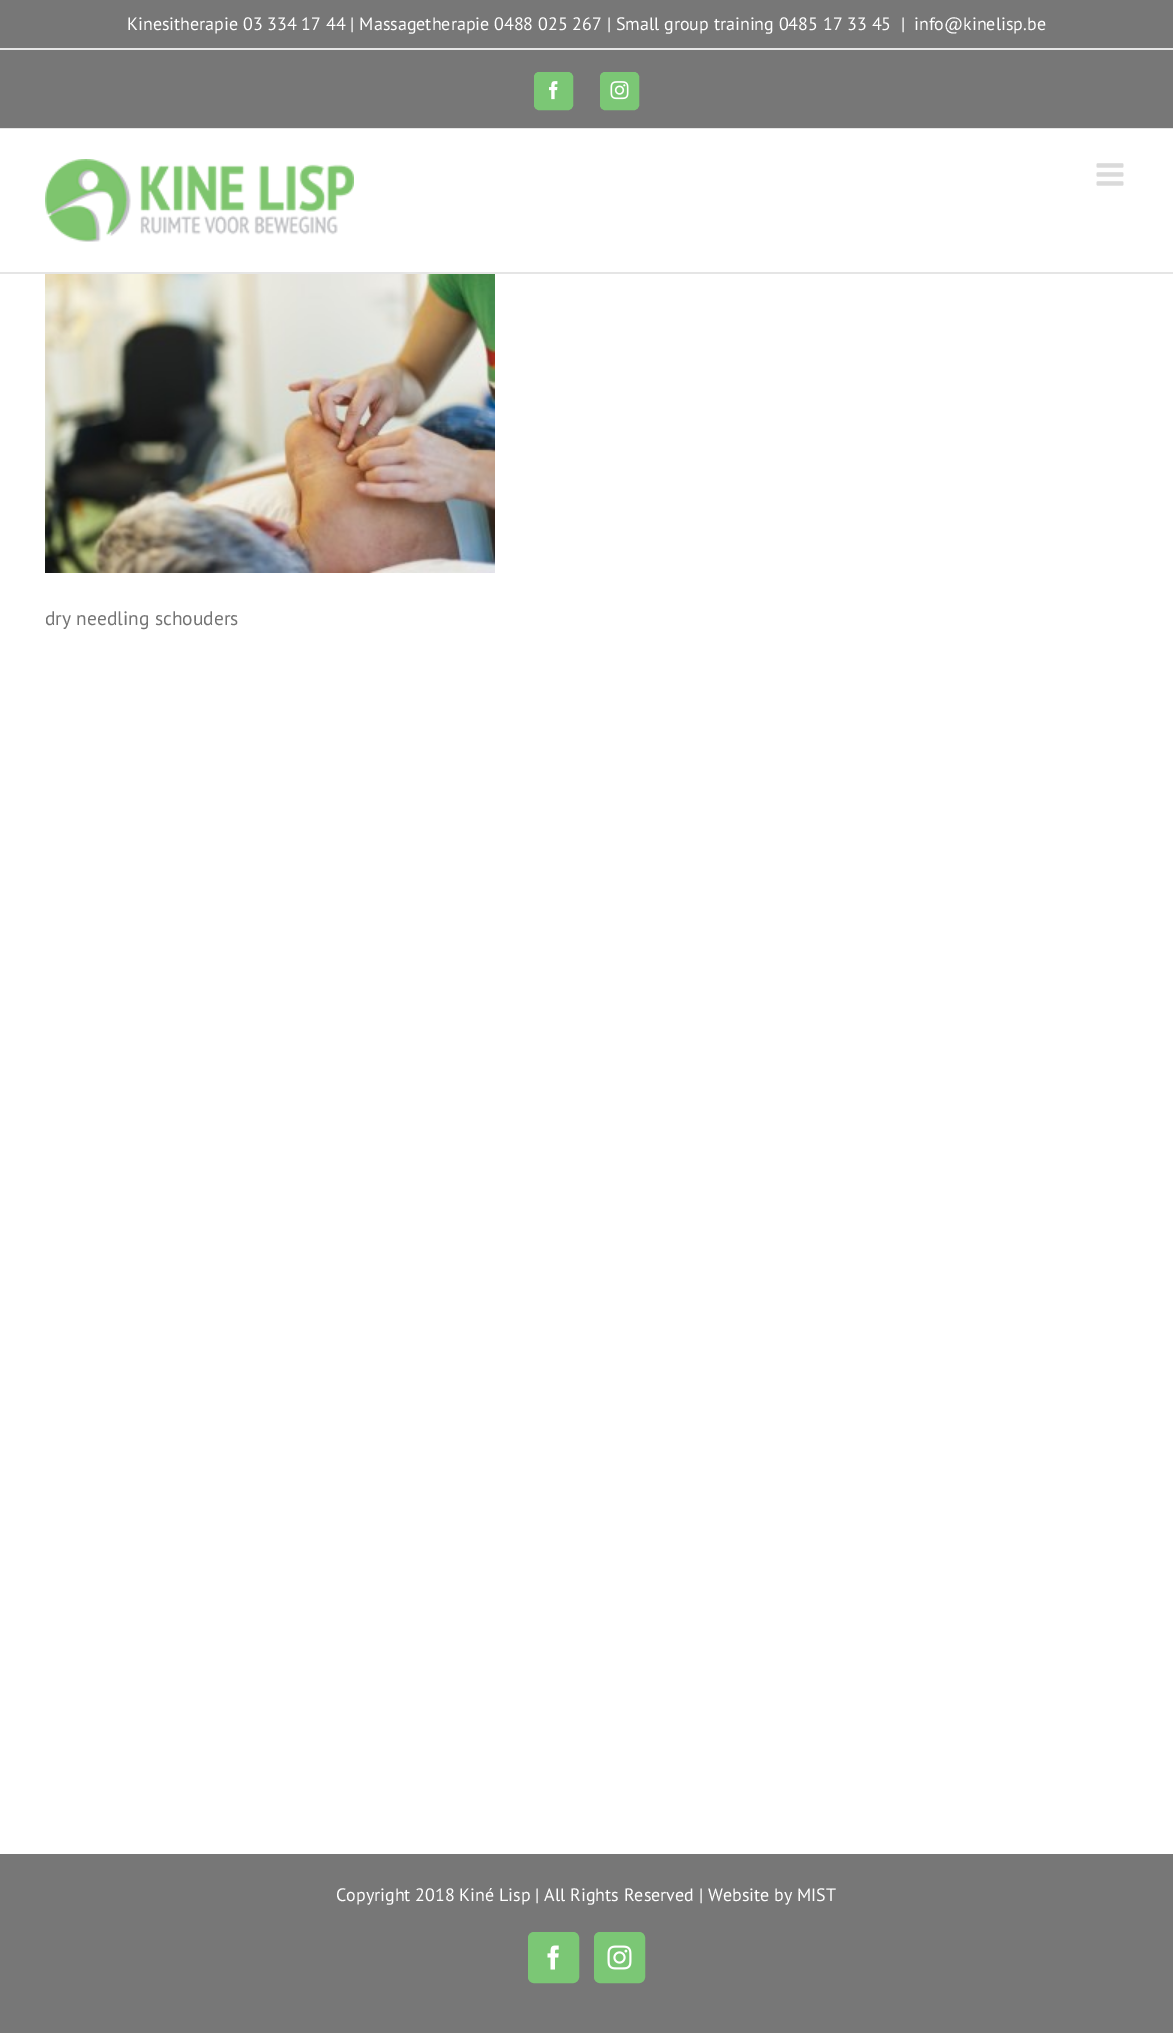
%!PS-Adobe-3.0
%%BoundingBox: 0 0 1173 2033
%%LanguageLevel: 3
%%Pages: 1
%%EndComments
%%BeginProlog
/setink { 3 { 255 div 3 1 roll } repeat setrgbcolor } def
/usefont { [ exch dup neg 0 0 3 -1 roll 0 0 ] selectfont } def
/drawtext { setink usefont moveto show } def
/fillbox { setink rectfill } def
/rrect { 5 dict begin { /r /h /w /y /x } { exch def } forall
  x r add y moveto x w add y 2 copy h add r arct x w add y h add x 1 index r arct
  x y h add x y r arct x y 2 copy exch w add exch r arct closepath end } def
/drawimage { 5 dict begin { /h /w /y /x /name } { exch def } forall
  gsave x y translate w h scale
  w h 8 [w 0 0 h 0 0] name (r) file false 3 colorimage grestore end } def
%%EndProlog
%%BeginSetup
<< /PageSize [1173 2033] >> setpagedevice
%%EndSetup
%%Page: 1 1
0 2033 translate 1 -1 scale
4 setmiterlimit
0 0 1173 2033 255 255 255 fillbox
0 0 1173 128 119 119 119 fillbox
0 128 1173 1 229 229 229 fillbox
0 48 1173 2 229 229 229 fillbox
(Kinesitherapie 03 334 17 44 | Massagetherapie 0488 025 267 | Small group training 0485 17 33 45) 127 30 /PTSans-Regular 18 255 255 255 drawtext
(|) 901 30 /PTSans-Regular 18 255 255 255 drawtext
(info@kinelisp.be) 914 30 /PTSans-Regular 18 255 255 255 drawtext
123 199 117 setink
534.5 72.5 38 37 4.5 rrect gsave fill grestore
stroke
(assets/img1.rgb) 549 81 9 19 drawimage
600.5 72.5 38 37 4.5 rrect gsave fill grestore
stroke
(assets/img2.rgb) 610 81 19 19 drawimage
0 272 1173 2 229 229 229 fillbox
(assets/img3.rgb) 45 159 309 83 drawimage
(assets/img4.rgb) 1096 163 28 23 drawimage
(assets/img5.rgb) 45 274 450 299 drawimage
(dry needling schouders) 45 625 /PTSans-Regular 19.5 116 116 116 drawtext
0 1854 1173 179 119 119 119 fillbox
(Copyright 2018 Kiné Lisp | All Rights Reserved | Website by MIST) 336 1901 /PTSans-Regular 18 255 255 255 drawtext
123 199 117 setink
529 1933 49 49 5 rrect gsave fill grestore
2 setlinewidth
stroke
(assets/img6.rgb) 547 1945 12 25 drawimage
595 1933 49 49 5 rrect gsave fill grestore
stroke
(assets/img7.rgb) 607 1945 25 25 drawimage
showpage
%%EOF
